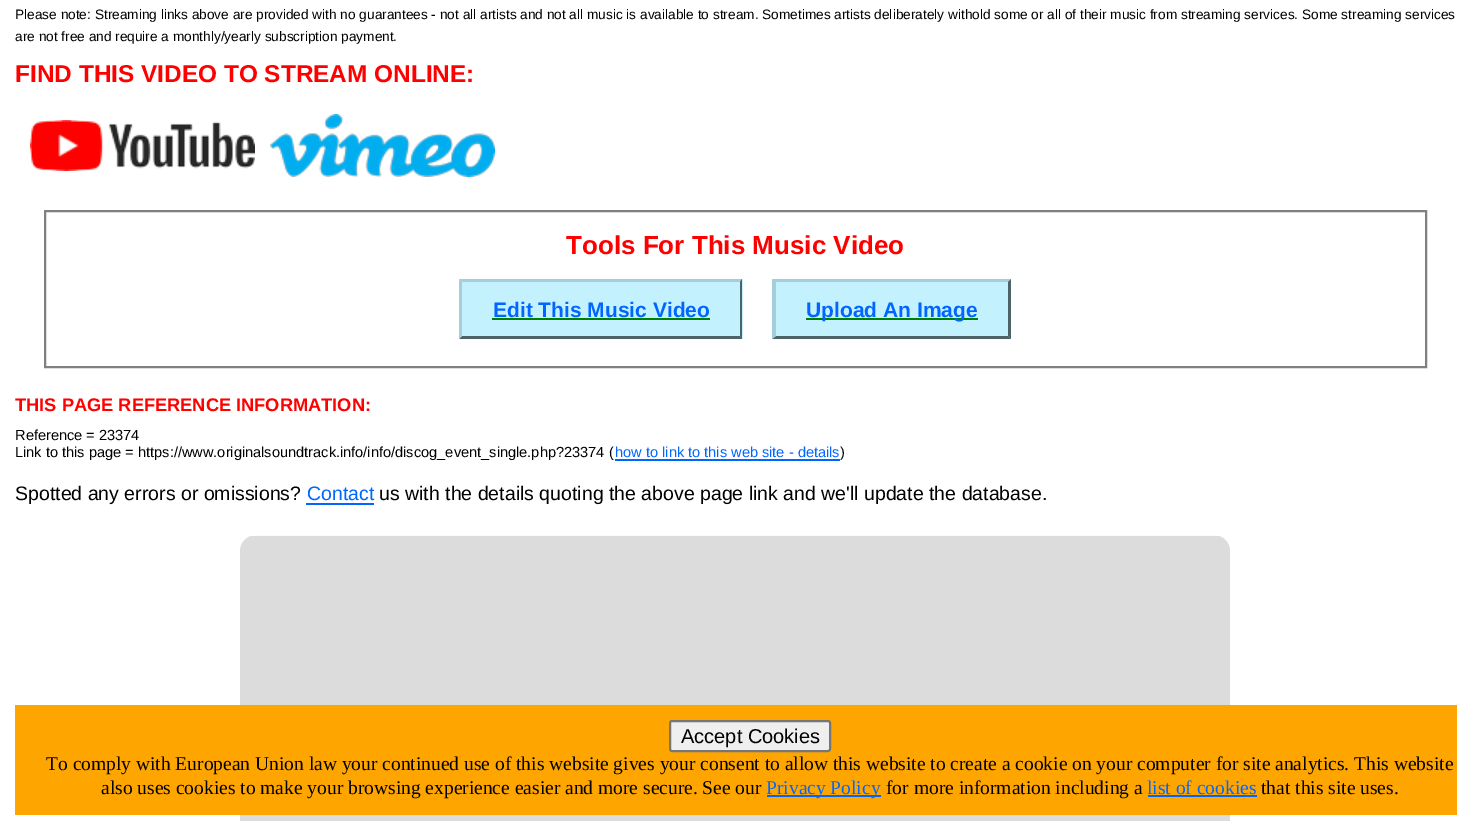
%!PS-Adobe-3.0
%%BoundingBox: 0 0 1457 821
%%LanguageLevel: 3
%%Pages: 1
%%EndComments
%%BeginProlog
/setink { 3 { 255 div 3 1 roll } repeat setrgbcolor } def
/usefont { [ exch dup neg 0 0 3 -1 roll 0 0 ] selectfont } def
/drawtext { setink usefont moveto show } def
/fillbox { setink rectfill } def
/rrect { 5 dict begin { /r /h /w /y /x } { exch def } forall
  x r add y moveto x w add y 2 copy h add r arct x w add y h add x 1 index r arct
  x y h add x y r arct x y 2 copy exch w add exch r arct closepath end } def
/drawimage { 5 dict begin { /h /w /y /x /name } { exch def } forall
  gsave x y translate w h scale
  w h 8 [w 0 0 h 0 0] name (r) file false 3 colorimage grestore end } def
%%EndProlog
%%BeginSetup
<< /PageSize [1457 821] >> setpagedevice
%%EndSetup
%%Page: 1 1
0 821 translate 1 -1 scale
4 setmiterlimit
0 0 1457 821 255 255 255 fillbox
(Please note: Streaming links above are provided with no guarantees - not all artists and not all music is available to stream. Sometimes artists deliberately withold some or all of their music from streaming services. Some streaming services) 15 19 /LiberationSans-Regular 13.65 0 0 0 drawtext
(are not free and require a monthly/yearly subscription payment.) 15 41 /LiberationSans-Regular 13.65 0 0 0 drawtext
(FIND THIS VIDEO TO STREAM ONLINE:) 15 82 /LiberationSans-Bold 24.4 255 0 0 drawtext
(assets/img1.rgb) 30 120 225 51 drawimage
(assets/img2.rgb) 270 114 225 63 drawimage
128 128 128 setink
2 setlinewidth
45 211 1381 156 rectstroke
(Tools For This Music Video) 566 254 /LiberationSans-Bold 26 255 0 0 drawtext
459 279 284 60 196 241 254 fillbox
(Edit This Music Video) 493 317 /LiberationSans-Bold 21 0 102 255 drawtext
163 206 218 setink
459 279 moveto 742 279 lineto 740 282 lineto 462 282 lineto closepath fill
79 98 103 setink
742 279 moveto 742 339 lineto 740 336 lineto 740 282 lineto closepath fill
742 339 moveto 459 339 lineto 462 336 lineto 740 336 lineto closepath fill
163 206 218 setink
459 339 moveto 459 279 lineto 462 282 lineto 462 336 lineto closepath fill
492 318 218 2 0 128 0 fillbox
773 279 238 60 196 241 254 fillbox
806 318 172 2 0 128 0 fillbox
(Upload An Image) 806 317 /LiberationSans-Bold 21 0 102 255 drawtext
163 206 218 setink
772 279 moveto 1011 279 lineto 1008 282 lineto 776 282 lineto closepath fill
79 98 103 setink
1011 279 moveto 1011 339 lineto 1008 336 lineto 1008 282 lineto closepath fill
1011 339 moveto 772 339 lineto 776 336 lineto 1008 336 lineto closepath fill
163 206 218 setink
772 339 moveto 772 279 lineto 776 282 lineto 776 336 lineto closepath fill
(THIS PAGE REFERENCE INFORMATION:) 15 411 /LiberationSans-Bold 18.25 255 0 0 drawtext
(Reference = 23374) 15 440 /LiberationSans-Regular 14.6 0 0 0 drawtext
(Link to this page = https://www.originalsoundtrack.info/info/discog_event_single.php?23374 \() 15 457 /LiberationSans-Regular 14.6 0 0 0 drawtext
(how to link to this web site - details) 615 457 /LiberationSans-Regular 14.6 0 102 255 drawtext
615 459 225 2 0 102 255 fillbox
(\)) 840 457 /LiberationSans-Regular 14.6 0 0 0 drawtext
(Spotted any errors or omissions?) 15 500 /LiberationSans-Regular 19.5 0 0 0 drawtext
(Contact) 307 500 /LiberationSans-Regular 19.5 0 102 255 drawtext
306 503 68 2 0 102 255 fillbox
(us with the details quoting the above page link and we'll update the database.) 379 500 /LiberationSans-Regular 19.5 0 0 0 drawtext
(assets/img3.rgb) 240 535 990 286 drawimage
15 705 1442 110 255 165 0 fillbox
239 239 239 setink
670 721 160 30 2 rrect gsave fill grestore
118 118 118 setink
stroke
(Accept Cookies) 681 743 /LiberationSans-Regular 20 0 0 0 drawtext
(To comply with European Union law your continued use of this website gives your consent to allow this website to create a cookie on your computer for site analytics. This website) 46 770 /LiberationSerif-Regular 19.5 0 0 0 drawtext
(also uses cookies to make your browsing experience easier and more secure. See our) 101 794 /LiberationSerif-Regular 19.5 0 0 0 drawtext
767 795 114 2 0 102 255 fillbox
(Privacy Policy) 766 794 /LiberationSerif-Regular 19.5 0 102 255 drawtext
(for more information including a) 886 794 /LiberationSerif-Regular 19.5 0 0 0 drawtext
(list of cookies) 1147 794 /LiberationSerif-Regular 19.5 0 102 255 drawtext
1148 795 109 2 0 102 255 fillbox
(that this site uses.) 1261 794 /LiberationSerif-Regular 19.5 0 0 0 drawtext
showpage
%%EOF
